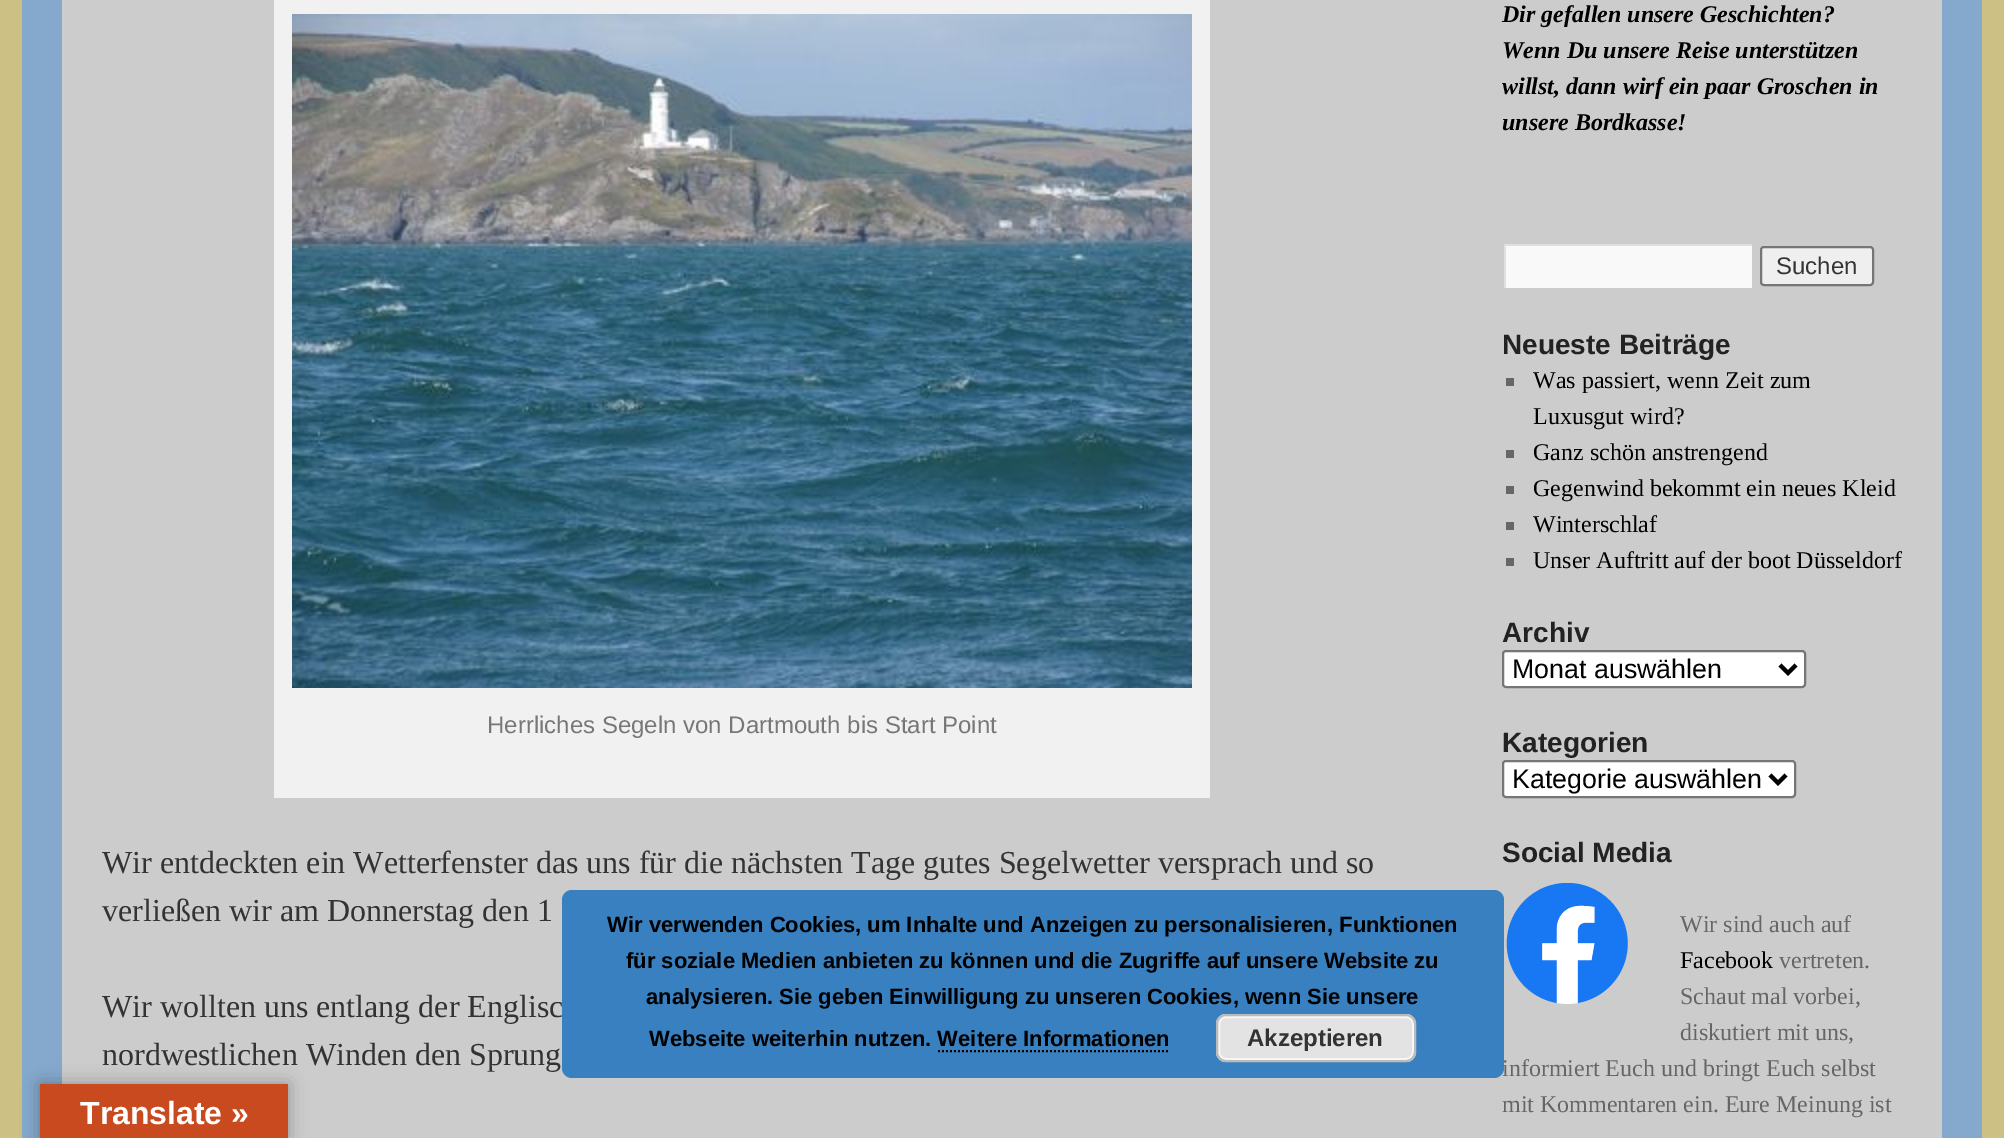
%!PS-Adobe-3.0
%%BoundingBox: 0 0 2004 1138
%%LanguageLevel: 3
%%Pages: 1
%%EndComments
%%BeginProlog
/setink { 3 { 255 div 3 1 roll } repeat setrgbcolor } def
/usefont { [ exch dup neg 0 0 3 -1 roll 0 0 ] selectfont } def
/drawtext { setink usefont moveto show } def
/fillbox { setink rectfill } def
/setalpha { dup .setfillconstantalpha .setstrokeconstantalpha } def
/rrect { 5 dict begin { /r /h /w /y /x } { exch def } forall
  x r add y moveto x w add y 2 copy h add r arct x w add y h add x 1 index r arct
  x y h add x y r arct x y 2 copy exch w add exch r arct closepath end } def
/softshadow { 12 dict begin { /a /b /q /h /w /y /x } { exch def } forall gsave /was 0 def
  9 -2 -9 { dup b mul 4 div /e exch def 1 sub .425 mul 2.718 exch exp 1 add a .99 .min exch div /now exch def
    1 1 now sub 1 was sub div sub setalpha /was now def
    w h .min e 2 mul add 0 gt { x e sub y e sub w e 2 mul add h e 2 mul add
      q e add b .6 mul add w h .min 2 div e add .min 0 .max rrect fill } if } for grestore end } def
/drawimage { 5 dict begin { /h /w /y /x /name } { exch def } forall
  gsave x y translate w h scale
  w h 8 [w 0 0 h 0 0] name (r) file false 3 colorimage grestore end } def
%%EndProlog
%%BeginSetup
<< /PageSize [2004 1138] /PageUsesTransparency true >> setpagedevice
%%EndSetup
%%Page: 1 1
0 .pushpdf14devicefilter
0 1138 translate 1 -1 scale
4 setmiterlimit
0 0 2004 1138 204 192 132 fillbox
22 0 1960 1138 133 169 205 fillbox
62 0 1880 1138 204 204 204 fillbox
274 0 936 798 241 241 241 fillbox
(assets/img1.rgb) 292 14 900 674 drawimage
(Herrliches Segeln von Dartmouth bis Start Point) 487 733 /LiberationSans-Regular 24 119 119 119 drawtext
(Wir entdeckten ein Wetterfenster das uns für die nächsten Tage gutes Segelwetter versprach und so) 102 873 /LiberationSerif-Regular 32 51 51 51 drawtext
(verließen wir am Donnerstag den 1) 102 921 /LiberationSerif-Regular 32 51 51 51 drawtext
(Wir wollten uns entlang der Englisc) 102 1017 /LiberationSerif-Regular 32 51 51 51 drawtext
(nordwestlichen Winden den Sprung) 102 1065 /LiberationSerif-Regular 32 51 51 51 drawtext
(Dir gefallen unsere Geschichten?) 1502 22 /LiberationSerif-BoldItalic 24 0 0 0 drawtext
(Wenn Du unsere Reise unterstützen) 1502 58 /LiberationSerif-BoldItalic 24 0 0 0 drawtext
(willst, dann wirf ein paar Groschen in) 1502 94 /LiberationSerif-BoldItalic 24 0 0 0 drawtext
(unsere Bordkasse!) 1502 130 /LiberationSerif-BoldItalic 24 0 0 0 drawtext
1506 246 246 42 249 249 249 fillbox
gsave
1504 244 248 44 rectclip
224 224 224 setink
1306 46 moveto 1950 46 lineto 1950 486 lineto 1306 486 lineto closepath 1506 246 moveto 1754 246 lineto 1754 290 lineto 1506 290 lineto closepath eofill
grestore
239 239 239 setink
1761 247 112 38 3 rrect gsave fill grestore
118 118 118 setink
2 setlinewidth
stroke
(Suchen) 1776 274 /LiberationSans-Regular 24 51 51 51 drawtext
(Neueste Beiträge) 1502 354 /LiberationSans-Bold 28 34 34 34 drawtext
1506 378 8 8 102 102 102 fillbox
(Was passiert, wenn Zeit zum) 1533 388 /LiberationSerif-Regular 24 0 0 0 drawtext
(Luxusgut wird?) 1533 424 /LiberationSerif-Regular 24 0 0 0 drawtext
1506 450 8 8 102 102 102 fillbox
(Ganz schön anstrengend) 1533 460 /LiberationSerif-Regular 24 0 0 0 drawtext
1506 486 8 8 102 102 102 fillbox
(Gegenwind bekommt ein neues Kleid) 1533 496 /LiberationSerif-Regular 24 0 0 0 drawtext
1506 522 8 8 102 102 102 fillbox
(Winterschlaf) 1533 532 /LiberationSerif-Regular 24 0 0 0 drawtext
1506 558 8 8 102 102 102 fillbox
(Unser Auftritt auf der boot Düsseldorf) 1533 568 /LiberationSerif-Regular 24 0 0 0 drawtext
(Archiv) 1502 642 /LiberationSans-Bold 28 34 34 34 drawtext
255 255 255 setink
1503 651 302 36 3 rrect gsave fill grestore
118 118 118 setink
stroke
0 0 0 setink
4 setlinewidth
1780 665 moveto 1788 673 lineto 1796 665 lineto stroke
(Monat auswählen) 1512 678 /LiberationSans-Regular 26.75 0 0 0 drawtext
(Kategorien) 1502 752 /LiberationSans-Bold 28 34 34 34 drawtext
255 255 255 setink
1503 761 292 36 3 rrect gsave fill grestore
118 118 118 setink
2 setlinewidth
stroke
0 0 0 setink
4 setlinewidth
1770 775 moveto 1778 783 lineto 1786 775 lineto stroke
(Kategorie auswählen) 1512 788 /LiberationSans-Regular 26.75 0 0 0 drawtext
(Social Media) 1502 862 /LiberationSans-Bold 28 34 34 34 drawtext
(assets/img2.rgb) 1506 883 122 121 drawimage
(Wir sind auch auf) 1680 932 /LiberationSerif-Regular 24 102 102 102 drawtext
(Facebook) 1680 968 /LiberationSerif-Regular 24 0 0 0 drawtext
(vertreten.) 1779 968 /LiberationSerif-Regular 24 102 102 102 drawtext
(Schaut mal vorbei,) 1680 1004 /LiberationSerif-Regular 24 102 102 102 drawtext
(diskutiert mit uns,) 1680 1040 /LiberationSerif-Regular 24 102 102 102 drawtext
(informiert Euch und bringt Euch selbst) 1502 1076 /LiberationSerif-Regular 24 102 102 102 drawtext
(mit Kommentaren ein. Eure Meinung ist) 1502 1112 /LiberationSerif-Regular 24 102 102 102 drawtext
0.85 setalpha
30 115 190 setink
562 890 942 188 10 rrect fill
1 setalpha
(Wir verwenden Cookies, um Inhalte und Anzeigen zu personalisieren, Funktionen) 607 932 /LiberationSans-Bold 22 0 0 0 drawtext
(für soziale Medien anbieten zu können und die Zugriffe auf unsere Website zu) 626 968 /LiberationSans-Bold 22 0 0 0 drawtext
(analysieren. Sie geben Einwilligung zu unseren Cookies, wenn Sie unsere) 646 1004 /LiberationSans-Bold 22 0 0 0 drawtext
(Webseite weiterhin nutzen. Weitere Informationen) 649 1046 /LiberationSans-Bold 22 0 0 0 drawtext
227 227 227 setink
1216 1014 200 48 10 rrect fill
246 246 246 setink
2 setlinewidth
1219 1017 194 42 7 rrect stroke
187 187 187 setink
1217 1015 198 46 9 rrect stroke
(Akzeptieren) 1247 1046 /LiberationSans-Bold 24 51 51 51 drawtext
0 0 0 setink
[2 2] 0 setdash
938 1051 moveto 1170 1051 lineto stroke
40 1084 248 54 0 9 0.3 softshadow
40 1084 248 54 202 74 31 fillbox
(Translate ») 80 1124 /LiberationSans-Bold 32 255 255 255 drawtext
.poppdf14devicefilter showpage
%%EOF
